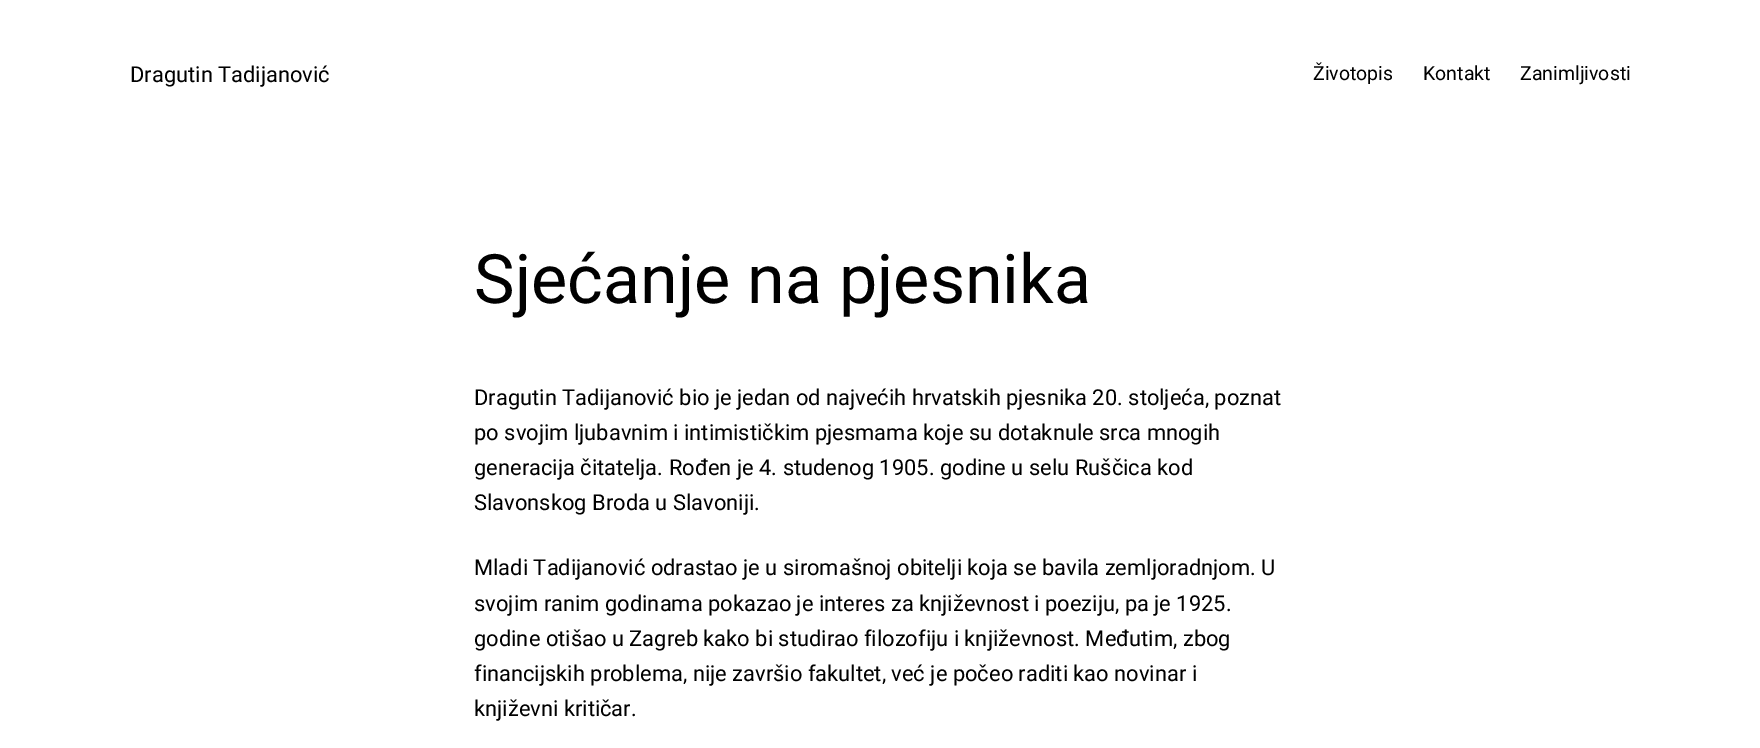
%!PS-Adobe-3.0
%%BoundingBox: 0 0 1760 748
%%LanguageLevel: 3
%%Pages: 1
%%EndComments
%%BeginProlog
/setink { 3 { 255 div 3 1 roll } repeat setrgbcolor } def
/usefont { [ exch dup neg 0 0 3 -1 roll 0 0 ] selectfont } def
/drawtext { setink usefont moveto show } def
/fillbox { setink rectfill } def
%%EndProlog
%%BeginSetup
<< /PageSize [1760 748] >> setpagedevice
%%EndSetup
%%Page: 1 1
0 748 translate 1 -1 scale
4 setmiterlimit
0 0 1760 748 255 255 255 fillbox
(Dragutin Tadijanović) 130 82 /Roboto-Regular 21.9 0 0 0 drawtext
(Životopis) 1313 80 /Roboto-Regular 19.5 0 0 0 drawtext
(Kontakt) 1423 80 /Roboto-Regular 19.5 0 0 0 drawtext
(Zanimljivosti) 1520 80 /Roboto-Regular 19.5 0 0 0 drawtext
(Sjećanje na pjesnika) 474 303 /Roboto-Regular 68.25 0 0 0 drawtext
(Dragutin Tadijanović bio je jedan od najvećih hrvatskih pjesnika 20. stoljeća, poznat) 474 405 /Roboto-Regular 21.9 0 0 0 drawtext
(po svojim ljubavnim i intimističkim pjesmama koje su dotaknule srca mnogih) 474 440 /Roboto-Regular 21.9 0 0 0 drawtext
(generacija čitatelja. Rođen je 4. studenog 1905. godine u selu Ruščica kod) 474 475 /Roboto-Regular 21.9 0 0 0 drawtext
(Slavonskog Broda u Slavoniji.) 474 510 /Roboto-Regular 21.9 0 0 0 drawtext
(Mladi Tadijanović odrastao je u siromašnoj obitelji koja se bavila zemljoradnjom. U) 474 575 /Roboto-Regular 21.9 0 0 0 drawtext
(svojim ranim godinama pokazao je interes za književnost i poeziju, pa je 1925.) 474 611 /Roboto-Regular 21.9 0 0 0 drawtext
(godine otišao u Zagreb kako bi studirao filozofiju i književnost. Međutim, zbog) 474 646 /Roboto-Regular 21.9 0 0 0 drawtext
(financijskih problema, nije završio fakultet, već je počeo raditi kao novinar i) 474 681 /Roboto-Regular 21.9 0 0 0 drawtext
(književni kritičar.) 474 716 /Roboto-Regular 21.9 0 0 0 drawtext
showpage
%%EOF
